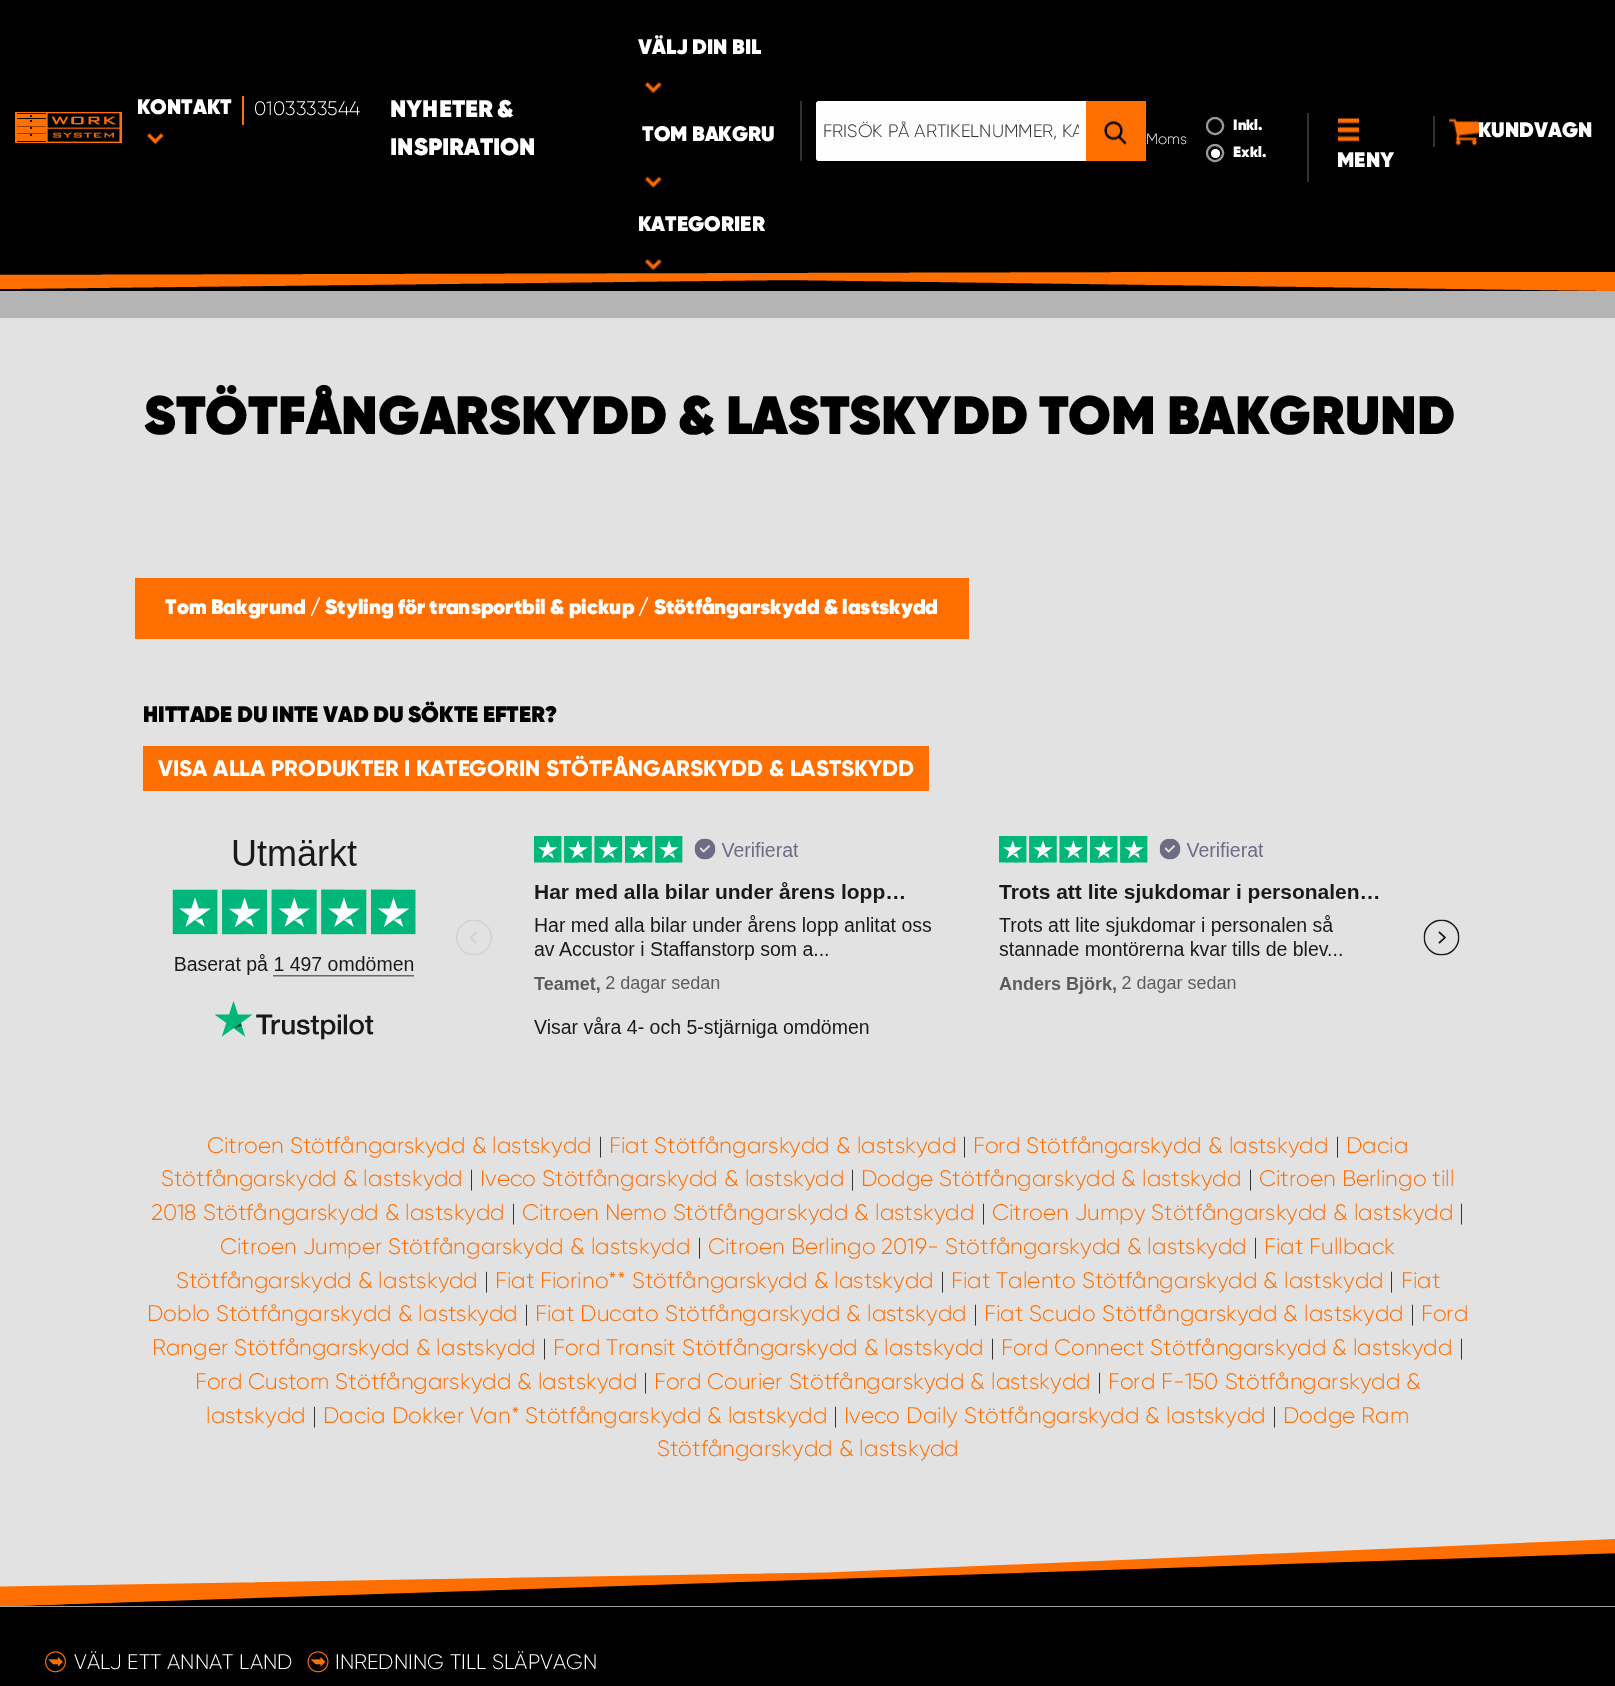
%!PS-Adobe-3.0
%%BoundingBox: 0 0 1615 1686
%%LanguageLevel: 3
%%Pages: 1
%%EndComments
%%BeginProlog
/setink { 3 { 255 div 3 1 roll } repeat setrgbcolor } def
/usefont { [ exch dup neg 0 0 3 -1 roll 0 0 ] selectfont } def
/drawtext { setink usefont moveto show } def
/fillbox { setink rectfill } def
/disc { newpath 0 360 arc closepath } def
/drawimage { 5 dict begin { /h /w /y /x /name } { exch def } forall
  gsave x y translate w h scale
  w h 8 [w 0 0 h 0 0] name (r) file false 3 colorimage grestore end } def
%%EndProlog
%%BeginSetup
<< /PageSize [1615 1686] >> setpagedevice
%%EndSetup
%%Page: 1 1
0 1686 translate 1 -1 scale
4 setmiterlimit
0 0 1615 1686 180 180 180 fillbox
0 0 1615 272 0 0 0 fillbox
(assets/img1.rgb) 15 112 107 31 drawimage
(KONTAKT) 137 114 /Gilroy-Regular 21 255 255 255 drawtext
(assets/img2.rgb) 146 132 18 13 drawimage
242 96 2 29 255 110 0 fillbox
(0103333544) 254 115 /Gilroy-Light 19.5 255 255 255 drawtext
(NYHETER &) 390 117 /Gilroy-Regular 24 255 255 255 drawtext
(INSPIRATION) 390 155 /Gilroy-Regular 24 255 255 255 drawtext
(VÄLJ DIN BIL) 638 54 /Gilroy-Regular 21 255 255 255 drawtext
(assets/img3.rgb) 644 81 18 13 drawimage
(TOM BAKGRU) 642 141 /Gilroy-Regular 21 255 255 255 drawtext
(assets/img4.rgb) 644 176 18 12 drawimage
(KATEGORIER) 638 231 /Gilroy-Regular 21 255 255 255 drawtext
(assets/img5.rgb) 644 258 18 13 drawimage
800 101 2 60 50 50 50 fillbox
254 254 254 setink
819 101 moveto 1086 101 lineto 1086 161 lineto 819 161 lineto 817.5 161 816 159.5 816 158 curveto 816 104 lineto 816 102.5 817.5 101 819 101 curveto closepath fill
gsave
824 120 255 21 rectclip
(FRISÖK PÅ ARTIKELNUMMER, KA) 823 137 /Gilroy-Light 18 51 51 51 drawtext
grestore
1086 101 60 60 255 110 0 fillbox
(assets/img6.rgb) 1104 121 23 24 drawimage
(Moms) 1146 144 /Gilroy-Light 15 255 255 255 drawtext
153 153 153 setink
2 setlinewidth
1215 126 8 disc stroke
(Inkl.) 1233 130 /Gilroy-Regular 15 255 255 255 drawtext
153 153 153 setink
1215 153 8 disc stroke
(Exkl.) 1233 157 /Gilroy-Regular 15 255 255 255 drawtext
1215.5 153.5 4.5 disc fill
1433 116 2 31 50 50 50 fillbox
(assets/img7.rgb) 1449 118 30 28 drawimage
(KUNDVAGN) 1478 137 /Gilroy-Regular 21 255 255 255 drawtext
1307 113 2 69 50 50 50 fillbox
(assets/img8.rgb) 1338 118 21 24 drawimage
(MENY) 1337 167 /Gilroy-Regular 21 255 255 255 drawtext
0 272 1613 19 0 0 0 fillbox
gsave
0 272 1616 19 rectclip
255 110 0 setink
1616 271 moveto 0 275 lineto 0 289 lineto 789 280 lineto 1615 291 lineto closepath fill
grestore
0 318 1615 1287 226 226 226 fillbox
(STÖTFÅNGARSKYDD & LASTSKYDD TOM BAKGRUND) 144 434 /Gilroy-Regular 54 0 0 0 drawtext
135 578 834 61 255 110 0 fillbox
(Tom Bakgrund / Styling för transportbil & pickup / Stötfångarskydd & lastskydd) 165 614 /Gilroy-Regular 21 255 255 255 drawtext
(HITTADE DU INTE VAD DU SÖKTE EFTER?) 143 722 /Gilroy-Regular 22.5 0 0 0 drawtext
143 746 786 45 255 110 0 fillbox
(VISA ALLA PRODUKTER I KATEGORIN STÖTFÅNGARSKYDD & LASTSKYDD) 158 776 /Gilroy-ExtraBold 22.5 255 255 255 drawtext
(assets/img9.rgb) 172 836 1288 204 drawimage
(Citroen Stötfångarskydd & lastskydd) 207 1153 /Gilroy-Light 22.5 255 110 0 drawtext
(|) 598 1153 /Gilroy-Light 22.5 51 51 51 drawtext
(Fiat Stötfångarskydd & lastskydd) 609 1153 /Gilroy-Light 22.5 255 110 0 drawtext
(|) 962 1153 /Gilroy-Light 22.5 51 51 51 drawtext
(Ford Stötfångarskydd & lastskydd) 973 1153 /Gilroy-Light 22.5 255 110 0 drawtext
(|) 1335 1153 /Gilroy-Light 22.5 51 51 51 drawtext
(Dacia) 1346 1153 /Gilroy-Light 22.5 255 110 0 drawtext
(Stötfångarskydd & lastskydd) 161 1186 /Gilroy-Light 22.5 255 110 0 drawtext
(|) 469 1186 /Gilroy-Light 22.5 51 51 51 drawtext
(Iveco Stötfångarskydd & lastskydd) 480 1186 /Gilroy-Light 22.5 255 110 0 drawtext
(|) 850 1186 /Gilroy-Light 22.5 51 51 51 drawtext
(Dodge Stötfångarskydd & lastskydd) 861 1186 /Gilroy-Light 22.5 255 110 0 drawtext
(|) 1248 1186 /Gilroy-Light 22.5 51 51 51 drawtext
(Citroen Berlingo till) 1259 1186 /Gilroy-Light 22.5 255 110 0 drawtext
(2018 Stötfångarskydd & lastskydd) 151 1220 /Gilroy-Light 22.5 255 110 0 drawtext
(|) 511 1220 /Gilroy-Light 22.5 51 51 51 drawtext
(Citroen Nemo Stötfångarskydd & lastskydd) 522 1220 /Gilroy-Light 22.5 255 110 0 drawtext
(|) 981 1220 /Gilroy-Light 22.5 51 51 51 drawtext
(Citroen Jumpy Stötfångarskydd & lastskydd) 992 1220 /Gilroy-Light 22.5 255 110 0 drawtext
(|) 1459 1220 /Gilroy-Light 22.5 51 51 51 drawtext
(Citroen Jumper Stötfångarskydd & lastskydd) 220 1254 /Gilroy-Light 22.5 255 110 0 drawtext
(|) 697 1254 /Gilroy-Light 22.5 51 51 51 drawtext
(Citroen Berlingo 2019- Stötfångarskydd & lastskydd) 708 1254 /Gilroy-Light 22.5 255 110 0 drawtext
(|) 1253 1254 /Gilroy-Light 22.5 51 51 51 drawtext
(Fiat Fullback) 1264 1254 /Gilroy-Light 22.5 255 110 0 drawtext
(Stötfångarskydd & lastskydd) 176 1288 /Gilroy-Light 22.5 255 110 0 drawtext
(|) 484 1288 /Gilroy-Light 22.5 51 51 51 drawtext
(Fiat Fiorino** Stötfångarskydd & lastskydd) 495 1288 /Gilroy-Light 22.5 255 110 0 drawtext
(|) 940 1288 /Gilroy-Light 22.5 51 51 51 drawtext
(Fiat Talento Stötfångarskydd & lastskydd) 951 1288 /Gilroy-Light 22.5 255 110 0 drawtext
(|) 1389 1288 /Gilroy-Light 22.5 51 51 51 drawtext
(Fiat) 1401 1288 /Gilroy-Light 22.5 255 110 0 drawtext
(Doblo Stötfångarskydd & lastskydd) 147 1321 /Gilroy-Light 22.5 255 110 0 drawtext
(|) 524 1321 /Gilroy-Light 22.5 51 51 51 drawtext
(Fiat Ducato Stötfångarskydd & lastskydd) 535 1321 /Gilroy-Light 22.5 255 110 0 drawtext
(|) 973 1321 /Gilroy-Light 22.5 51 51 51 drawtext
(Fiat Scudo Stötfångarskydd & lastskydd) 984 1321 /Gilroy-Light 22.5 255 110 0 drawtext
(|) 1410 1321 /Gilroy-Light 22.5 51 51 51 drawtext
(Ford) 1421 1321 /Gilroy-Light 22.5 255 110 0 drawtext
(Ranger Stötfångarskydd & lastskydd) 152 1355 /Gilroy-Light 22.5 255 110 0 drawtext
(|) 542 1355 /Gilroy-Light 22.5 51 51 51 drawtext
(Ford Transit Stötfångarskydd & lastskydd) 553 1355 /Gilroy-Light 22.5 255 110 0 drawtext
(|) 990 1355 /Gilroy-Light 22.5 51 51 51 drawtext
(Ford Connect Stötfångarskydd & lastskydd) 1001 1355 /Gilroy-Light 22.5 255 110 0 drawtext
(|) 1459 1355 /Gilroy-Light 22.5 51 51 51 drawtext
(Ford Custom Stötfångarskydd & lastskydd) 195 1389 /Gilroy-Light 22.5 255 110 0 drawtext
(|) 643 1389 /Gilroy-Light 22.5 51 51 51 drawtext
(Ford Courier Stötfångarskydd & lastskydd) 654 1389 /Gilroy-Light 22.5 255 110 0 drawtext
(|) 1097 1389 /Gilroy-Light 22.5 51 51 51 drawtext
(Ford F-150 Stötfångarskydd &) 1108 1389 /Gilroy-Light 22.5 255 110 0 drawtext
(lastskydd) 206 1423 /Gilroy-Light 22.5 255 110 0 drawtext
(|) 312 1423 /Gilroy-Light 22.5 51 51 51 drawtext
(Dacia Dokker Van* Stötfångarskydd & lastskydd) 323 1423 /Gilroy-Light 22.5 255 110 0 drawtext
(|) 833 1423 /Gilroy-Light 22.5 51 51 51 drawtext
(Iveco Daily Stötfångarskydd & lastskydd) 844 1423 /Gilroy-Light 22.5 255 110 0 drawtext
(|) 1272 1423 /Gilroy-Light 22.5 51 51 51 drawtext
(Dodge Ram) 1283 1423 /Gilroy-Light 22.5 255 110 0 drawtext
(Stötfångarskydd & lastskydd) 657 1456 /Gilroy-Light 22.5 255 110 0 drawtext
(assets/img10.rgb) 0 1539 1615 68 drawimage
0 1607 1615 79 0 0 0 fillbox
(assets/img11.rgb) 45 1651 21 22 drawimage
(VÄLJ ETT ANNAT LAND) 74 1669 /Gilroy-Light 21 255 255 255 drawtext
(assets/img12.rgb) 307 1651 22 22 drawimage
(INREDNING TILL SLÄPVAGN) 335 1669 /Gilroy-Light 21 255 255 255 drawtext
showpage
%%EOF
